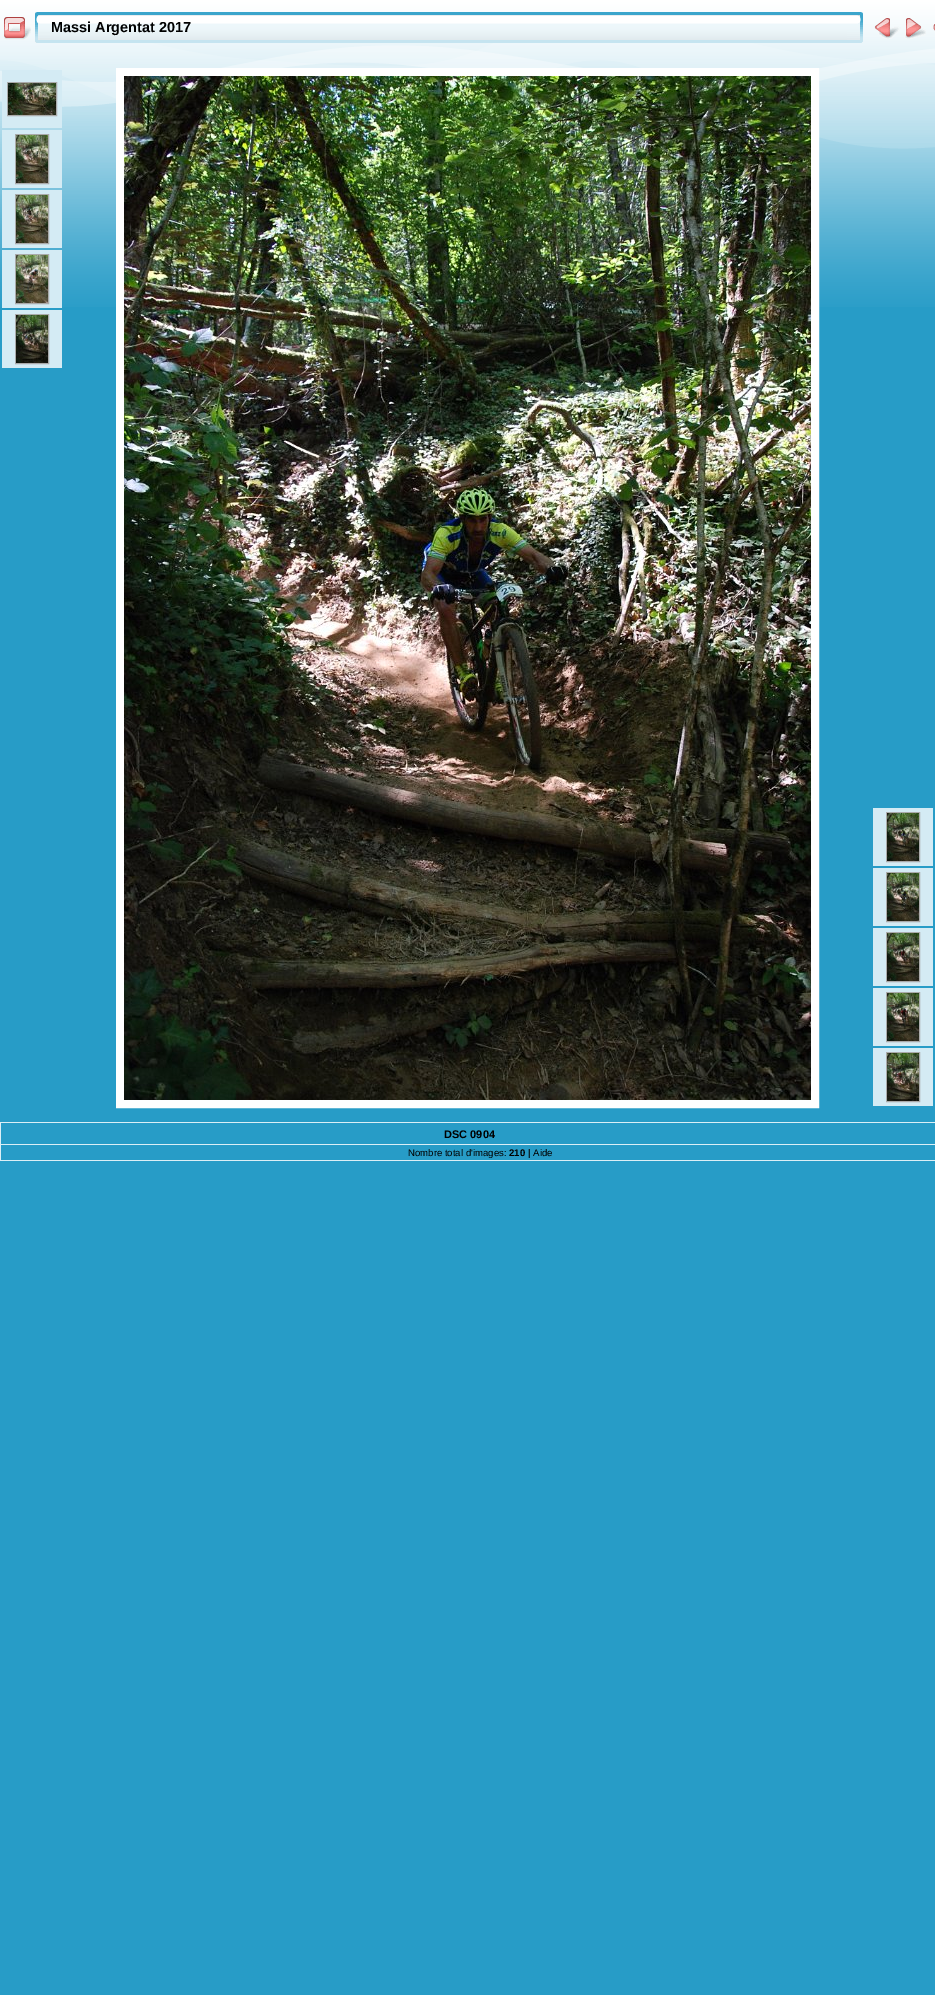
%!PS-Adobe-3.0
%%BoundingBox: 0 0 935 1995
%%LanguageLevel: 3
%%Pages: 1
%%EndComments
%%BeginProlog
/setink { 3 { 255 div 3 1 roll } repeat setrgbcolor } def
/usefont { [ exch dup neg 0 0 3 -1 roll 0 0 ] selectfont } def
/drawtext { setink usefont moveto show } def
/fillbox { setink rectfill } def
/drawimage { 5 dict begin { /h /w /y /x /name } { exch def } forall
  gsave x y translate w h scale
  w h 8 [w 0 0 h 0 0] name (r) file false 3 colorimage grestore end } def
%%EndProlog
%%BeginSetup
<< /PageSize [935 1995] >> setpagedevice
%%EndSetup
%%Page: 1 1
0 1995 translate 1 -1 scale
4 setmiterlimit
0 0 935 1995 39 156 199 fillbox
(assets/img1.rgb) 0 0 935 307 drawimage
(assets/img2.rgb) 4 17 27 23 drawimage
(assets/img3.rgb) 35 12 16 31 drawimage
(assets/img4.rgb) 51 12 796 31 drawimage
(Massi Argentat 2017) 51 32 /LiberationSans-Bold 14.5 0 0 0 drawtext
(assets/img5.rgb) 847 12 16 31 drawimage
(assets/img6.rgb) 874 18 24 21 drawimage
(assets/img7.rgb) 898 18 28 21 drawimage
(assets/img8.rgb) 933 24 2 7 drawimage
2 70 60 58 212 235 244 fillbox
170 170 170 setink
7.5 82.5 49 33 rectstroke
(assets/img9.rgb) 8 83 48 32 drawimage
2 130 60 58 212 235 244 fillbox
170 170 170 setink
15.5 134.5 33 49 rectstroke
(assets/img10.rgb) 16 135 32 48 drawimage
2 190 60 58 212 235 244 fillbox
170 170 170 setink
15.5 194.5 33 49 rectstroke
(assets/img11.rgb) 16 195 32 48 drawimage
2 250 60 58 212 235 244 fillbox
170 170 170 setink
15.5 254.5 33 49 rectstroke
(assets/img12.rgb) 16 255 32 48 drawimage
2 310 60 58 212 235 244 fillbox
170 170 170 setink
15.5 314.5 33 49 rectstroke
(assets/img13.rgb) 16 315 32 48 drawimage
255 255 255 setink
8 setlinewidth
120 72 695 1032 rectstroke
(assets/img14.rgb) 124 76 687 1024 drawimage
873 808 60 58 212 235 244 fillbox
170 170 170 setink
1 setlinewidth
886.5 812.5 33 49 rectstroke
(assets/img15.rgb) 887 813 32 48 drawimage
873 868 60 58 212 235 244 fillbox
170 170 170 setink
886.5 872.5 33 49 rectstroke
(assets/img16.rgb) 887 873 32 48 drawimage
873 928 60 58 212 235 244 fillbox
170 170 170 setink
886.5 932.5 33 49 rectstroke
(assets/img17.rgb) 887 933 32 48 drawimage
873 988 60 58 212 235 244 fillbox
170 170 170 setink
886.5 992.5 33 49 rectstroke
(assets/img18.rgb) 887 993 32 48 drawimage
873 1048 60 58 212 235 244 fillbox
170 170 170 setink
886.5 1052.5 33 49 rectstroke
(assets/img19.rgb) 887 1053 32 48 drawimage
0 1122 935 1 219 239 246 fillbox
0 1160 935 1 219 239 246 fillbox
0 1122 1 39 219 239 246 fillbox
(DSC 0904) 444 1138 /LiberationSans-Bold 11 0 0 0 drawtext
0 1144 935 1 219 239 246 fillbox
(Nombre total d'images:) 408 1156 /LiberationSans-Regular 9.6 0 0 0 drawtext
(210) 509 1156 /LiberationSans-Bold 9.6 0 0 0 drawtext
(| Aide) 528 1156 /LiberationSans-Regular 9.6 0 0 0 drawtext
showpage
%%EOF
